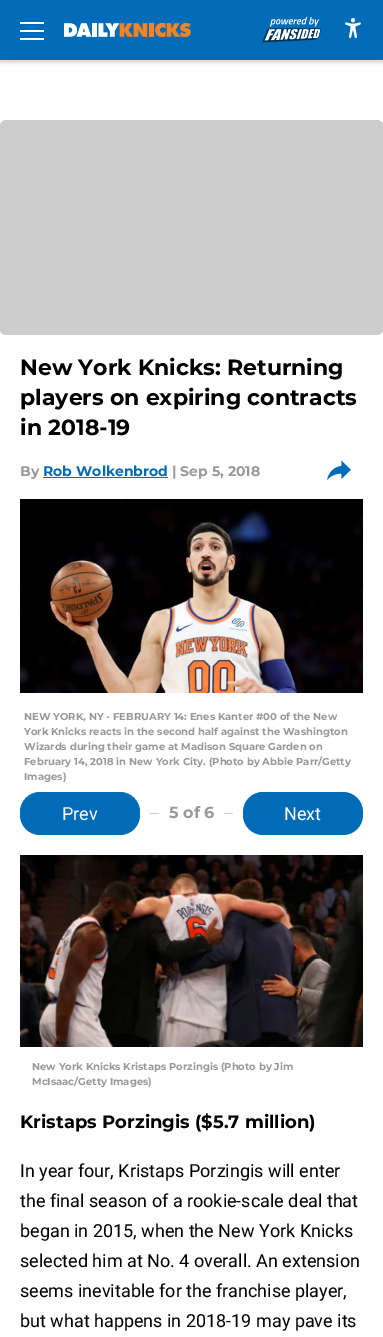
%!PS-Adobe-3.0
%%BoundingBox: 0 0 383 1337
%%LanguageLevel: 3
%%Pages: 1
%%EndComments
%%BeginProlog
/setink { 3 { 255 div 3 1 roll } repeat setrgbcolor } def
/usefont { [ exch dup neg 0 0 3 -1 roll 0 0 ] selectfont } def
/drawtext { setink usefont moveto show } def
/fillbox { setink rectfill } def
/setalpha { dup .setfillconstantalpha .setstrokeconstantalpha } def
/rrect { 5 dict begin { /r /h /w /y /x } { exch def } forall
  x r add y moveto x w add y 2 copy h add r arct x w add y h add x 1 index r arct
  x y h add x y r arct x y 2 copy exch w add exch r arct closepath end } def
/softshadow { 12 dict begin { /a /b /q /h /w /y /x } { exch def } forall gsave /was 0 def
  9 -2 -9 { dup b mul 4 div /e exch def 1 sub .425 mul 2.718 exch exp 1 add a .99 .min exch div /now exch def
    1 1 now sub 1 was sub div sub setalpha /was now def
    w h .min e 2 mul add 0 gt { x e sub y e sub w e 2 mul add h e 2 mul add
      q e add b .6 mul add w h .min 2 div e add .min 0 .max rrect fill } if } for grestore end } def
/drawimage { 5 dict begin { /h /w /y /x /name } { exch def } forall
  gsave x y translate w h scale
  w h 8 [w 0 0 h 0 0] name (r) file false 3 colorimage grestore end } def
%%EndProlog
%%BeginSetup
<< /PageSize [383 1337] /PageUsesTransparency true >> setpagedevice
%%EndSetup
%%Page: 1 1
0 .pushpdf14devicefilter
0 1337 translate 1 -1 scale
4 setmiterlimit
0 0 383 1337 255 255 255 fillbox
0 0 0 setink
0 2 383 60 0 2 0.2 softshadow
0 0 383 60 0 107 182 fillbox
20 22 24 2 255 255 255 fillbox
20 30 24 2 255 255 255 fillbox
20 38 24 2 255 255 255 fillbox
(assets/img1.rgb) 64 22 127 16 drawimage
(assets/img2.rgb) 262 17 59 26 drawimage
(assets/img3.rgb) 345 18 16 20 drawimage
204 204 204 setink
0 120 383 215 6 rrect fill
(New York Knicks: Returning) 20 375 /Montserrat-Thin 22 0 0 0 drawtext
(players on expiring contracts) 20 405 /Montserrat-Thin 22 0 0 0 drawtext
(in 2018-19) 20 435 /Montserrat-Thin 22 0 0 0 drawtext
(By) 20 476 /Montserrat-Thin 14 153 153 153 drawtext
(Rob Wolkenbrod) 43 476 /Montserrat-Thin 14 0 107 182 drawtext
43 477 125 1 0 107 182 fillbox
(| Sep 5, 2018) 172 476 /Montserrat-Thin 14 153 153 153 drawtext
(assets/img4.rgb) 327 460 24 20 drawimage
(assets/img5.rgb) 20 499 343 194 drawimage
(NEW YORK, NY - FEBRUARY 14: Enes Kanter #00 of the New) 24 720 /Montserrat-Thin 10 153 153 153 drawtext
(York Knicks reacts in the second half against the Washington) 24 735 /Montserrat-Thin 10 153 153 153 drawtext
(Wizards during their game at Madison Square Garden on) 24 750 /Montserrat-Thin 10 153 153 153 drawtext
(February 14, 2018 in New York City. \(Photo by Abbie Parr/Getty) 24 765 /Montserrat-Thin 10 153 153 153 drawtext
(Images\)) 24 780 /Montserrat-Thin 10 153 153 153 drawtext
0 107 182 setink
20 792 120 43 20 rrect fill
(Prev) 62 820 /Roboto-Regular 18 255 255 255 drawtext
150 813 9 1 204 204 204 fillbox
(5 of 6) 169 818 /Montserrat-Thin 16 153 153 153 drawtext
224 813 9 1 204 204 204 fillbox
0 107 182 setink
243 792 120 43 20 rrect fill
(Next) 284 820 /Roboto-Regular 18 255 255 255 drawtext
(assets/img6.rgb) 20 855 343 192 drawimage
(New York Knicks Kristaps Porzingis \(Photo by Jim) 32 1070 /Montserrat-Thin 10 153 153 153 drawtext
(McIsaac/Getty Images\)) 32 1085 /Montserrat-Thin 10 153 153 153 drawtext
(Kristaps Porzingis \($5.7 million\)) 20 1128 /Montserrat-Thin 18 0 0 0 drawtext
(In year four, Kristaps Porzingis will enter) 20 1177 /Roboto-Regular 18 0 0 0 drawtext
(the final season of a rookie-scale deal that) 20 1207 /Roboto-Regular 18 0 0 0 drawtext
(began in 2015, when the New York Knicks) 20 1237 /Roboto-Regular 18 0 0 0 drawtext
(selected him at No. 4 overall. An extension) 20 1267 /Roboto-Regular 18 0 0 0 drawtext
(seems inevitable for the franchise player,) 20 1297 /Roboto-Regular 18 0 0 0 drawtext
(but what happens in 2018-19 may pave its) 20 1327 /Roboto-Regular 18 0 0 0 drawtext
.poppdf14devicefilter showpage
%%EOF
